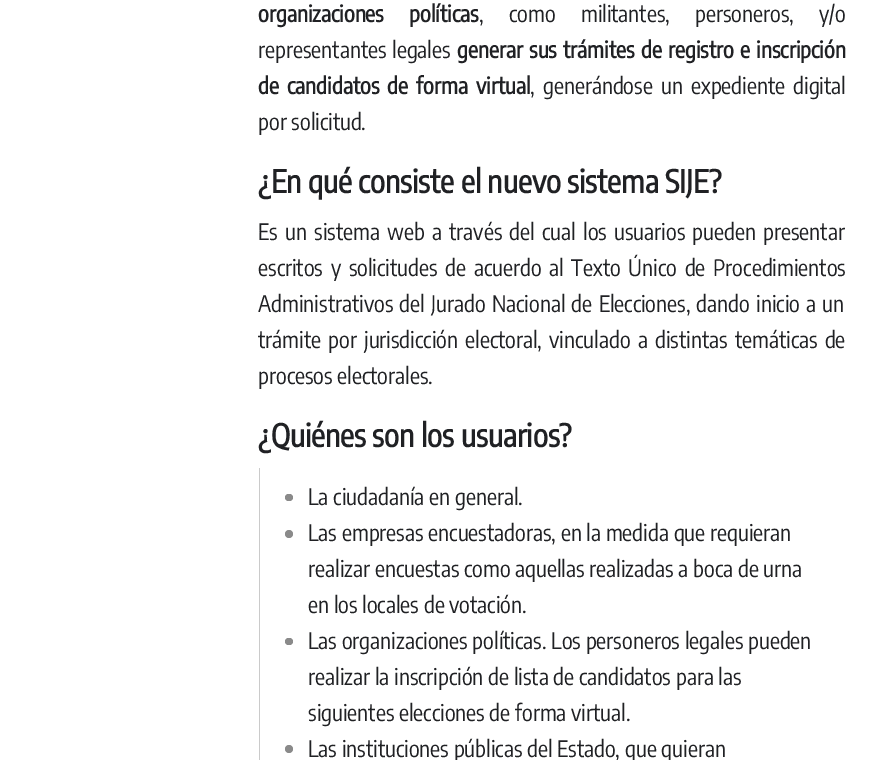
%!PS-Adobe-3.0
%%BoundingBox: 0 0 882 760
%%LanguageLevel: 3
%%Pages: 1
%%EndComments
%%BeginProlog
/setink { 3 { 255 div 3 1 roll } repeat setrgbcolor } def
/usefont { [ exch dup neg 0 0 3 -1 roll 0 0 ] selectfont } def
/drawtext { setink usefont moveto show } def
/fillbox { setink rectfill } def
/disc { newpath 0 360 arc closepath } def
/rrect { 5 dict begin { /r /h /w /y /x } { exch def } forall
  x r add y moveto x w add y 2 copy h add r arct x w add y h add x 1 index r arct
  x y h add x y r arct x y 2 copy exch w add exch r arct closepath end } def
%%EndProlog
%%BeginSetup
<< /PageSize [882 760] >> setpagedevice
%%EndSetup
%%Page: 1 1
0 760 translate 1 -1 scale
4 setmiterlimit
0 0 882 760 255 255 255 fillbox
/EncodeSansCondensed-Bold 22.5 usefont
32 33 36 setink
258 22 moveto 20.5 0 32 (organizaciones políticas) widthshow
/EncodeSansCondensed-Regular 22.5 usefont
479 22 moveto 20.5 0 32 (, como militantes, personeros, y/o) widthshow
258 58 moveto 1 0 32 (representantes legales) widthshow
/EncodeSansCondensed-Bold 22.5 usefont
457 58 moveto 1.5 0 32 (generar sus trámites de registro e inscripción) widthshow
258 94 moveto 3.5 0 32 (de candidatos de forma virtual) widthshow
/EncodeSansCondensed-Regular 22.5 usefont
530 94 moveto 3.5 0 32 (, generándose un expediente digital) widthshow
(por solicitud.) 258 130 /EncodeSansCondensed-Regular 22.5 32 33 36 drawtext
(¿En qué consiste el nuevo sistema SIJE?) 258 193 /EncodeSansCondensed-Bold 31.25 32 33 36 drawtext
/EncodeSansCondensed-Regular 22.5 usefont
258 240 moveto 2.5 0 32 (Es un sistema web a través del cual los usuarios pueden presentar) widthshow
258 276 moveto 3 0 32 (escritos y solicitudes de acuerdo al Texto Único de Procedimientos) widthshow
258 312 moveto 1.5 0 32 (Administrativos del Jurado Nacional de Elecciones, dando inicio a un) widthshow
258 348 moveto 2.5 0 32 (trámite por jurisdicción electoral, vinculado a distintas temáticas de) widthshow
(procesos electorales.) 258 384 /EncodeSansCondensed-Regular 22.5 32 33 36 drawtext
(¿Quiénes son los usuarios?) 258 447 /EncodeSansCondensed-Bold 31.25 32 33 36 drawtext
259 468 1 292 202 202 202 fillbox
138 138 138 setink
285 494 8 7 3.5 rrect fill
(La ciudadanía en general.) 308 505 /EncodeSansCondensed-Regular 22.5 32 33 36 drawtext
138 138 138 setink
289 534 4 disc fill
(Las empresas encuestadoras, en la medida que requieran) 308 541 /EncodeSansCondensed-Regular 22.5 32 33 36 drawtext
(realizar encuestas como aquellas realizadas a boca de urna) 308 577 /EncodeSansCondensed-Regular 22.5 32 33 36 drawtext
(en los locales de votación.) 308 613 /EncodeSansCondensed-Regular 22.5 32 33 36 drawtext
138 138 138 setink
285 638 8 7 3.5 rrect fill
(Las organizaciones políticas. Los personeros legales pueden) 308 649 /EncodeSansCondensed-Regular 22.5 32 33 36 drawtext
(realizar la inscripción de lista de candidatos para las) 308 685 /EncodeSansCondensed-Regular 22.5 32 33 36 drawtext
(siguientes elecciones de forma virtual.) 308 721 /EncodeSansCondensed-Regular 22.5 32 33 36 drawtext
138 138 138 setink
289 749 4 disc fill
(Las instituciones públicas del Estado, que quieran) 308 757 /EncodeSansCondensed-Regular 22.5 32 33 36 drawtext
showpage
%%EOF
